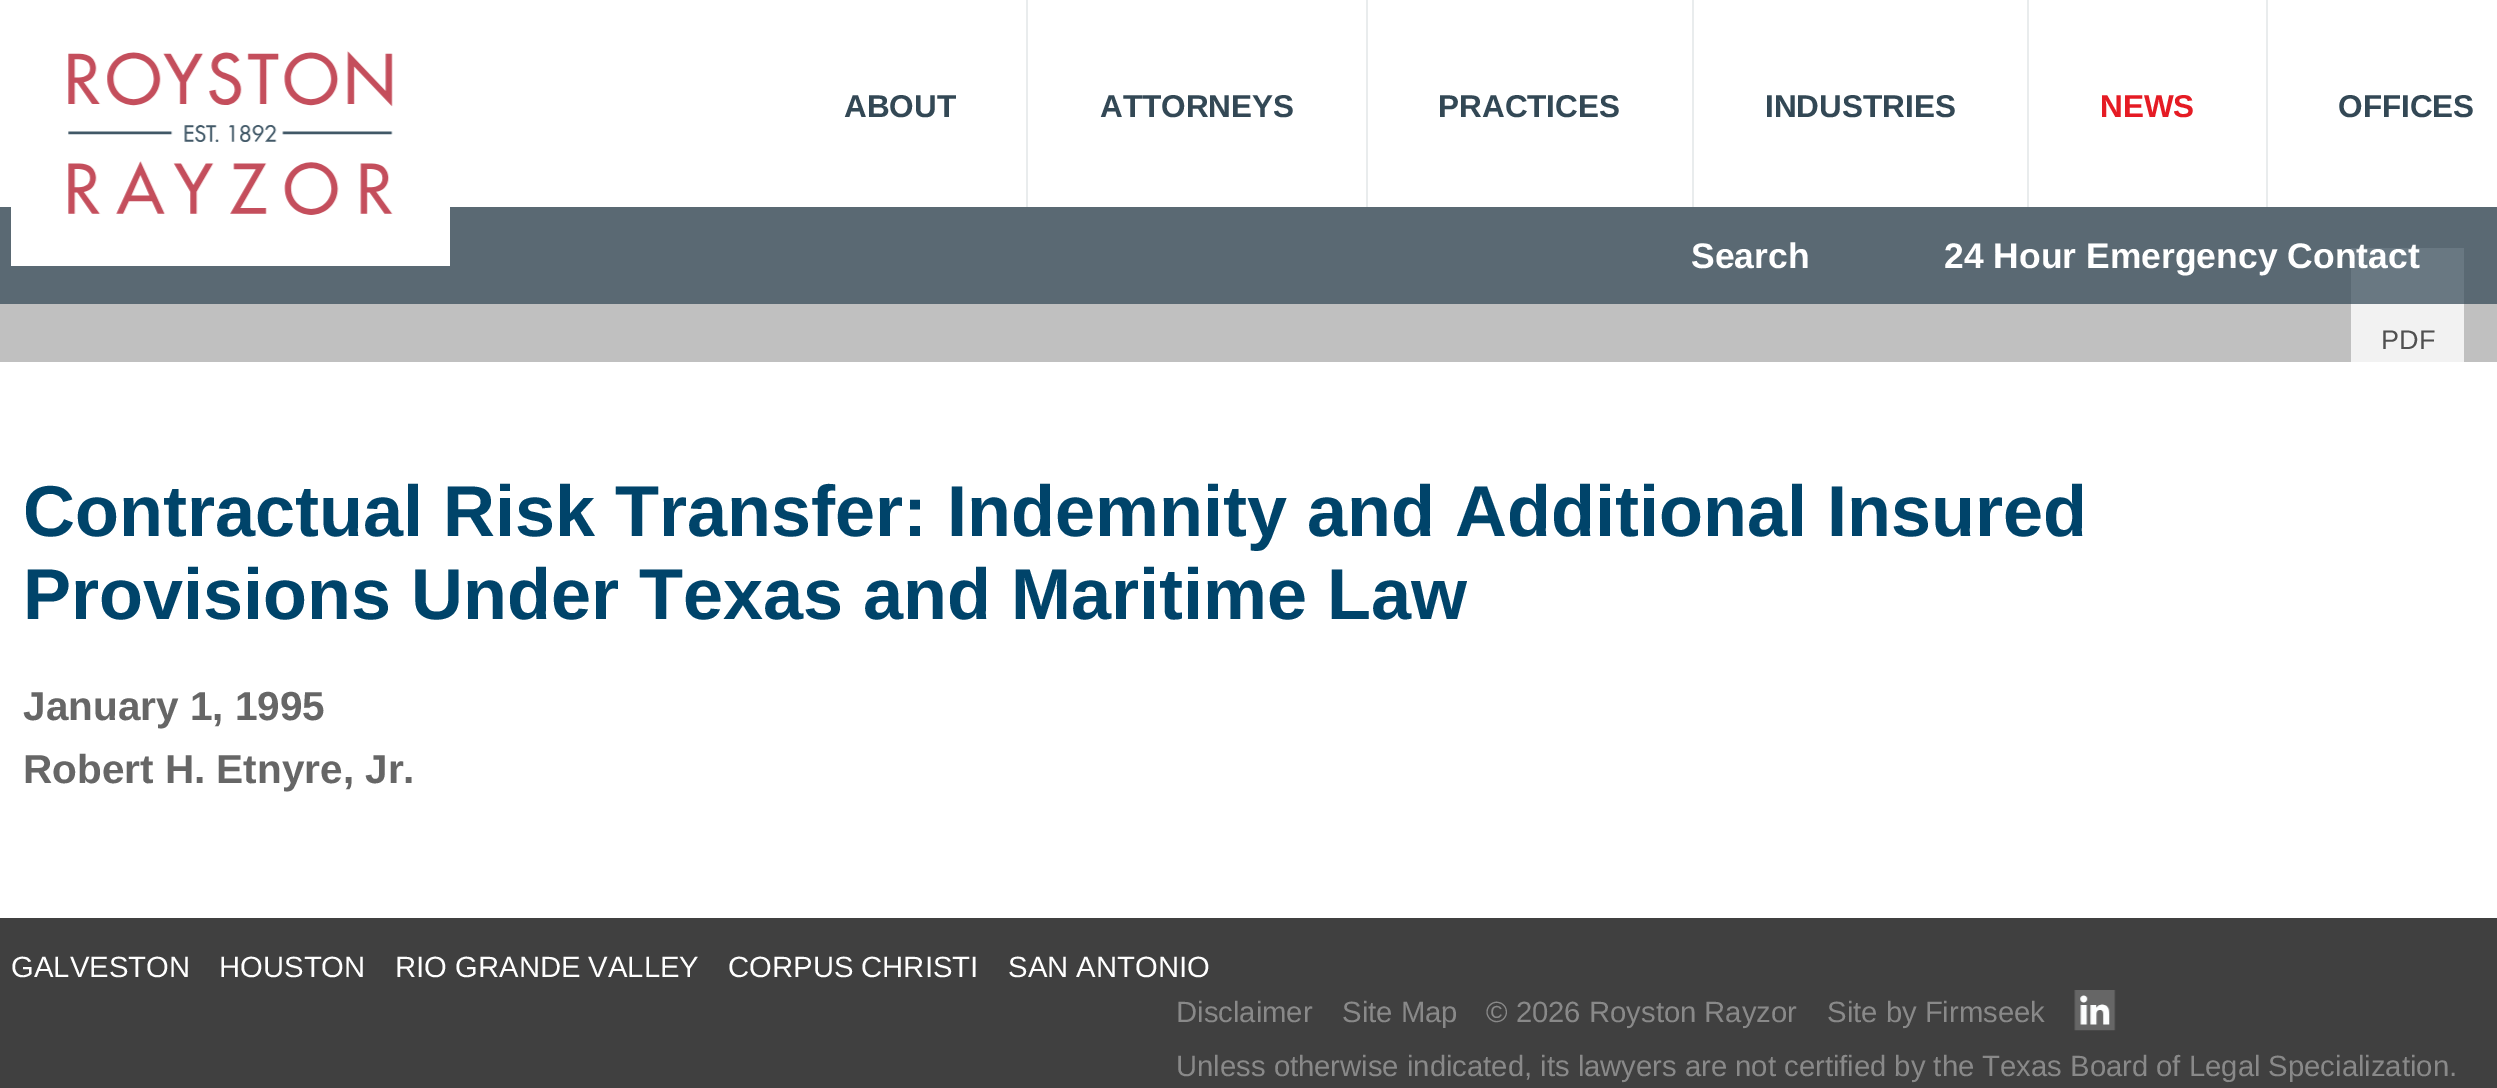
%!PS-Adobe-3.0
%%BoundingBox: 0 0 2497 1088
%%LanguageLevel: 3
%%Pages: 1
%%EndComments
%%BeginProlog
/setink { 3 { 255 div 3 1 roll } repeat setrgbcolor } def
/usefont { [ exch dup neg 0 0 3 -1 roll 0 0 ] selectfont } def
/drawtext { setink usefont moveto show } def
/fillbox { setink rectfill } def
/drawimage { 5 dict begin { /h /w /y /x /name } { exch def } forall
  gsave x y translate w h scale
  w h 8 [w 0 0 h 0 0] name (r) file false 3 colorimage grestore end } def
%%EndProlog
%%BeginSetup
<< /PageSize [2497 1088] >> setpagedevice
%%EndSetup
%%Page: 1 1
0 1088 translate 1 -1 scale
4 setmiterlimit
0 0 2497 1088 255 255 255 fillbox
(ABOUT) 844 117 /LiberationSans-Bold 31.5 51 72 85 drawtext
1026 0 2 207 233 236 237 fillbox
(ATTORNEYS) 1100 117 /LiberationSans-Bold 31.5 51 72 85 drawtext
1366 0 2 207 233 236 237 fillbox
(PRACTICES) 1438 117 /LiberationSans-Bold 31.5 51 72 85 drawtext
1692 0 2 207 233 236 237 fillbox
(INDUSTRIES) 1765 117 /LiberationSans-Bold 31.5 51 72 85 drawtext
2027 0 2 207 233 236 237 fillbox
(NEWS) 2100 117 /LiberationSans-Bold 31.5 229 27 36 drawtext
2266 0 2 207 233 236 237 fillbox
(OFFICES) 2338 117 /LiberationSans-Bold 31.5 51 72 85 drawtext
0 304 2497 58 192 192 192 fillbox
0 207 2497 97 90 105 115 fillbox
11 207 439 59 255 255 255 fillbox
(assets/img1.rgb) 68 51 325 164 drawimage
(Search) 1691 268 /LiberationSans-Bold 35.5 255 255 255 drawtext
2351 248 113 56 105 120 130 fillbox
(24 Hour Emergency Contact) 1944 268 /LiberationSans-Bold 35.5 255 255 255 drawtext
2351 304 113 58 242 242 242 fillbox
(PDF) 2381 349 /LiberationSans-Regular 27 80 80 80 drawtext
(Contractual Risk Transfer: Indemnity and Additional Insured) 23 536 /LiberationSans-Bold 72 0 68 106 drawtext
(Provisions Under Texas and Maritime Law) 23 619 /LiberationSans-Bold 72 0 68 106 drawtext
(January 1, 1995) 23 720 /LiberationSans-Bold 40.5 102 102 102 drawtext
(Robert H. Etnyre, Jr.) 23 783 /LiberationSans-Bold 40.5 102 102 102 drawtext
0 918 2497 170 64 64 64 fillbox
(GALVESTON) 11 977 /LiberationSans-Regular 29.25 255 255 255 drawtext
(HOUSTON) 219 977 /LiberationSans-Regular 29.25 255 255 255 drawtext
(RIO GRANDE VALLEY) 395 977 /LiberationSans-Regular 29.25 255 255 255 drawtext
(CORPUS CHRISTI) 728 977 /LiberationSans-Regular 29.25 255 255 255 drawtext
(SAN ANTONIO) 1008 977 /LiberationSans-Regular 29.25 255 255 255 drawtext
(Disclaimer) 1176 1022 /LiberationSans-Regular 29.25 137 137 137 drawtext
(Site Map) 1342 1022 /LiberationSans-Regular 29.25 137 137 137 drawtext
(© 2026 Royston Rayzor) 1486 1022 /LiberationSans-Regular 29.25 137 137 137 drawtext
(Site by Firmseek) 1827 1022 /LiberationSans-Regular 29.25 137 137 137 drawtext
(assets/img2.rgb) 2074 990 42 41 drawimage
(Unless otherwise indicated, its lawyers are not certified by the Texas Board of Legal Specialization.) 1176 1076 /LiberationSans-Regular 29.25 137 137 137 drawtext
showpage
%%EOF
